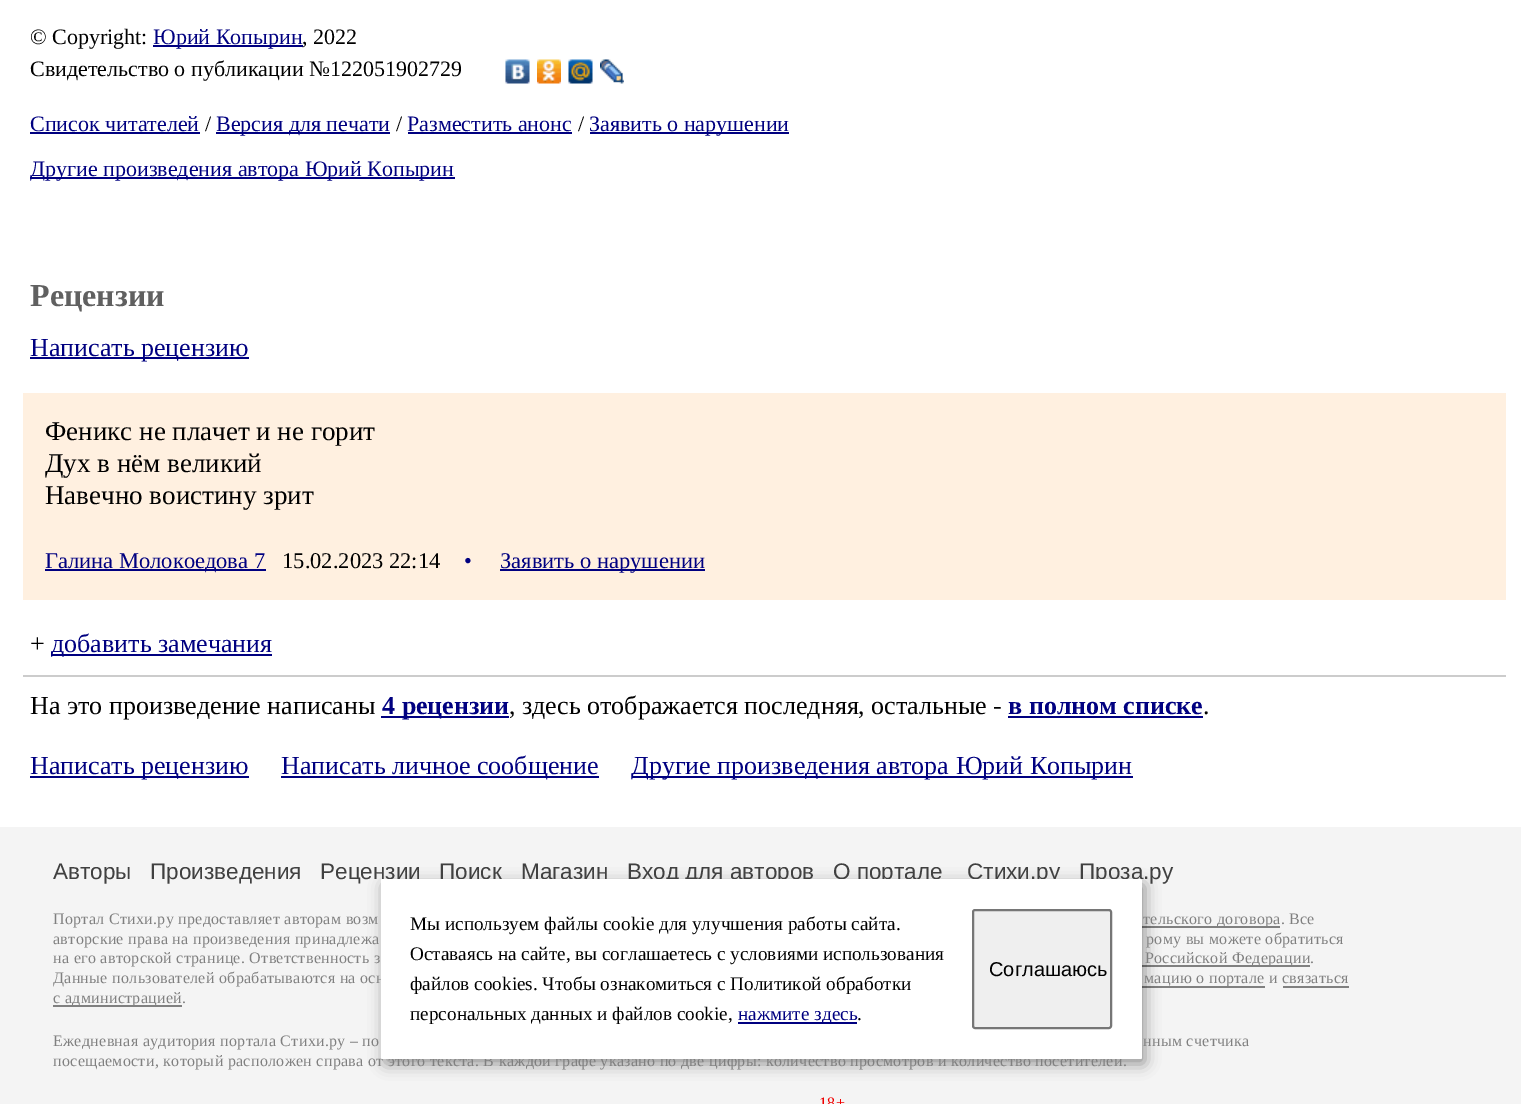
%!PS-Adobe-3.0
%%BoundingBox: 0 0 1521 1104
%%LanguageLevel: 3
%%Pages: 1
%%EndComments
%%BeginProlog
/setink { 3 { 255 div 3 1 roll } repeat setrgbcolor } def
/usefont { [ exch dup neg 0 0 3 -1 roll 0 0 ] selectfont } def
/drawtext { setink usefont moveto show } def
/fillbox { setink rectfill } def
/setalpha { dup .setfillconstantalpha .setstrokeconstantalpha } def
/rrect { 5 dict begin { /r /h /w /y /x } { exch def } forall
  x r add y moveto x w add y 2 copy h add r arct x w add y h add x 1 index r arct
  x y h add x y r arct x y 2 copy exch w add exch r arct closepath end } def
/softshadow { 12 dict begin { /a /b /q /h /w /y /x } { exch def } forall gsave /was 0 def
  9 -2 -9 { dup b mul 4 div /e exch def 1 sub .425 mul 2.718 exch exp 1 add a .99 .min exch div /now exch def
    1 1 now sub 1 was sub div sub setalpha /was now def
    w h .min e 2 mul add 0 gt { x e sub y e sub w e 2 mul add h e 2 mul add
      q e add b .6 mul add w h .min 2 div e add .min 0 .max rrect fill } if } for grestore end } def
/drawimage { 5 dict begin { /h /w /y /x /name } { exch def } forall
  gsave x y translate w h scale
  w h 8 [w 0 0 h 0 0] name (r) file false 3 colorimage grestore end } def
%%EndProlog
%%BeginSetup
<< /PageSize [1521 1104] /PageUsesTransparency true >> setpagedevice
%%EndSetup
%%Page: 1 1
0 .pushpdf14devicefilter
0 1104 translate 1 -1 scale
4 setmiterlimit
0 0 1521 1104 255 255 255 fillbox
(© Copyright:) 30 44 /LiberationSerif-Regular 22 0 0 0 drawtext
153 45 150 2 0 0 128 fillbox
(Юрий Копырин) 153 44 /LiberationSerif-Regular 22 0 0 128 drawtext
(, 2022) 302 44 /LiberationSerif-Regular 22 0 0 0 drawtext
(Свидетельство о публикации №122051902729) 30 76 /LiberationSerif-Regular 22 0 0 0 drawtext
(assets/img1.rgb) 505 59 25 25 drawimage
(assets/img2.rgb) 537 59 24 25 drawimage
(assets/img3.rgb) 568 59 25 25 drawimage
(assets/img4.rgb) 600 59 24 25 drawimage
(Список читателей) 30 131 /LiberationSerif-Regular 22 0 0 128 drawtext
30 132 170 2 0 0 128 fillbox
(/) 205 131 /LiberationSerif-Regular 22 0 0 0 drawtext
216 132 174 2 0 0 128 fillbox
(Версия для печати) 216 131 /LiberationSerif-Regular 22 0 0 128 drawtext
(/) 396 131 /LiberationSerif-Regular 22 0 0 0 drawtext
(Разместить анонс) 407 131 /LiberationSerif-Regular 22 0 0 128 drawtext
408 132 164 2 0 0 128 fillbox
(/) 578 131 /LiberationSerif-Regular 22 0 0 0 drawtext
590 132 199 2 0 0 128 fillbox
(Заявить о нарушении) 589 131 /LiberationSerif-Regular 22 0 0 128 drawtext
30 177 425 2 0 0 128 fillbox
(Другие произведения автора Юрий Копырин) 30 176 /LiberationSerif-Regular 22 0 0 128 drawtext
(Рецензии) 30 306 /LiberationSerif-Bold 32 96 96 96 drawtext
30 357 219 2 0 0 128 fillbox
(Написать рецензию) 30 356 /LiberationSerif-Regular 26 0 0 128 drawtext
23 393 1483 207 255 240 224 fillbox
(Феникс не плачет и не горит) 45 440 /LiberationSerif-Regular 27 0 0 0 drawtext
(Дух в нём великий) 45 472 /LiberationSerif-Regular 27 0 0 0 drawtext
(Навечно воистину зрит) 45 504 /LiberationSerif-Regular 27 0 0 0 drawtext
45 569 221 2 0 0 128 fillbox
(Галина Молокоедова 7) 45 568 /LiberationSerif-Regular 22.5 0 0 128 drawtext
(15.02.2023 22:14) 282 568 /LiberationSerif-Regular 22.5 0 0 0 drawtext
(•) 464 568 /LiberationSerif-Regular 22.5 0 0 128 drawtext
500 569 205 2 0 0 128 fillbox
(Заявить о нарушении) 500 568 /LiberationSerif-Regular 22.5 0 0 128 drawtext
(+) 30 652 /LiberationSerif-Regular 26 0 0 0 drawtext
51 654 221 2 0 0 128 fillbox
(добавить замечания) 51 652 /LiberationSerif-Regular 26 0 0 128 drawtext
23 675 1483 2 204 204 204 fillbox
(На это произведение написаны) 30 714 /LiberationSerif-Regular 26 0 0 0 drawtext
381 716 128 2 0 0 128 fillbox
(4 рецензии) 382 714 /LiberationSerif-Bold 26 0 0 128 drawtext
(, здесь отображается последняя, остальные -) 509 714 /LiberationSerif-Regular 26 0 0 0 drawtext
(в полном списке) 1008 714 /LiberationSerif-Bold 26 0 0 128 drawtext
1008 716 195 2 0 0 128 fillbox
(.) 1203 714 /LiberationSerif-Regular 26 0 0 0 drawtext
30 776 219 2 0 0 128 fillbox
(Написать рецензию) 30 774 /LiberationSerif-Regular 26 0 0 128 drawtext
281 776 318 2 0 0 128 fillbox
(Написать личное сообщение) 281 774 /LiberationSerif-Regular 26 0 0 128 drawtext
632 776 501 2 0 0 128 fillbox
(Другие произведения автора Юрий Копырин) 631 774 /LiberationSerif-Regular 26 0 0 128 drawtext
0 827 1521 277 244 244 244 fillbox
1142 926 138 2 128 128 128 fillbox
1142 965 168 2 128 128 128 fillbox
1142 986 123 2 128 128 128 fillbox
0 0 0 setink
384 884 761 180 1.5 7.5 0.4 softshadow
(Рецензии) 320 879 /LiberationSans-Regular 22.5 64 64 64 drawtext
(Поиск) 439 879 /LiberationSans-Regular 22.5 64 64 64 drawtext
(Магазин) 521 879 /LiberationSans-Regular 22.5 64 64 64 drawtext
(Вход для авторов) 627 879 /LiberationSans-Regular 22.5 64 64 64 drawtext
(О портале) 833 879 /LiberationSans-Regular 22.5 64 64 64 drawtext
(Стихи.ру) 967 879 /LiberationSans-Regular 22.5 64 64 64 drawtext
(Проза.ру) 1079 879 /LiberationSans-Regular 22.5 64 64 64 drawtext
/LiberationSerif-Regular 16 usefont
128 128 128 setink
53 983 moveto 0.3 0 (Данные пользователей обрабатываются на осн) ashow
53 1066 moveto 0.3 0 (посещаемости, который расположен справа от этого текста. В каждой графе указано по две цифры: количество просмотров и количество посетителей.) ashow
255 255 255 setink
381 879 761 180 1.5 rrect fill
(Мы используем файлы cookie для улучшения работы сайта.) 410 930 /LiberationSerif-Regular 19.2 0 0 0 drawtext
(Оставаясь на сайте, вы соглашаетесь с условиями использования) 410 960 /LiberationSerif-Regular 19.2 0 0 0 drawtext
(файлов cookies. Чтобы ознакомиться с Политикой обработки) 410 990 /LiberationSerif-Regular 19.2 0 0 0 drawtext
(персональных данных и файлов cookie,) 410 1020 /LiberationSerif-Regular 19.2 0 0 0 drawtext
738 1022 119 2 0 0 128 fillbox
(нажмите здесь) 738 1020 /LiberationSerif-Regular 19.2 0 0 128 drawtext
(.) 857 1020 /LiberationSerif-Regular 19.2 0 0 0 drawtext
239 239 239 setink
973 910 138 118 2 rrect gsave fill grestore
118 118 118 setink
2 setlinewidth
stroke
(Соглашаюсь) 989 976 /LiberationSans-Regular 20 0 0 0 drawtext
(Авторы) 53 879 /LiberationSans-Regular 22.5 64 64 64 drawtext
(Произведения) 150 879 /LiberationSans-Regular 22.5 64 64 64 drawtext
/LiberationSerif-Regular 16 usefont
128 128 128 setink
53 924 moveto 0.3 0 (Портал Стихи.ру предоставляет авторам возм) ashow
1143 924 moveto 0.3 0 (тельского договора. Все) ashow
53 944 moveto 0.3 0 (авторские права на произведения принадлежа) ashow
1146 944 moveto 0.3 0 (рому вы можете обратиться) ashow
53 963 moveto 0.3 0 (на его авторской странице. Ответственность з) ashow
1145 963 moveto 0.3 0 (Российской Федерации.) ashow
1144 983 moveto 0.3 0 (мацию о портале и связаться) ashow
53 1005 129 2 128 128 128 fillbox
53 1003 moveto 0.3 0 (с администрацией.) ashow
1283 986 66 2 128 128 128 fillbox
53 1046 moveto 0.3 0 (Ежедневная аудитория портала Стихи.ру – по) ashow
1143 1046 moveto 0.3 0 (нным счетчика) ashow
240 0 0 setink
819 1108 moveto 0.3 0 (18+) ashow
.poppdf14devicefilter showpage
%%EOF
